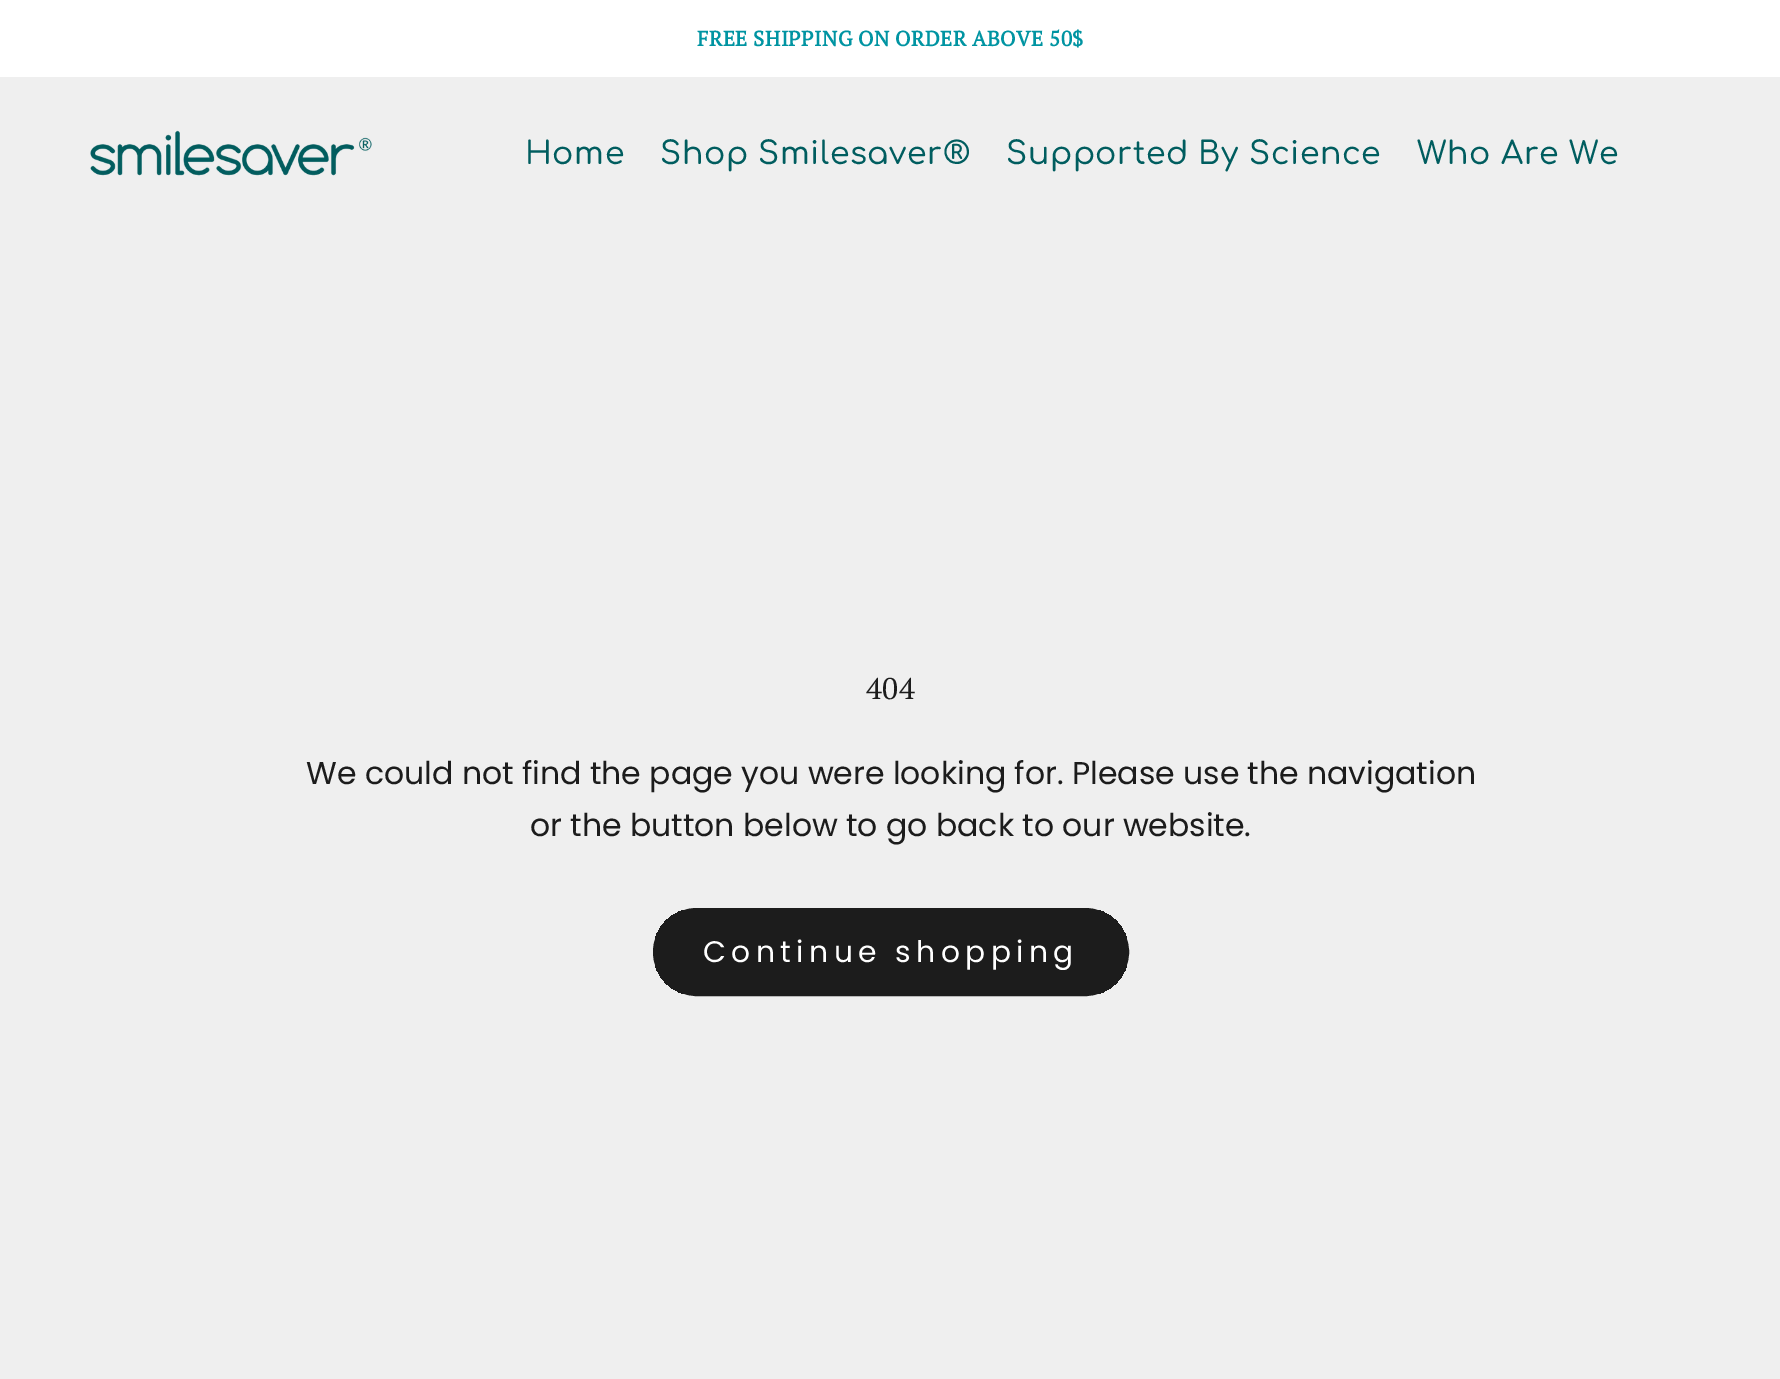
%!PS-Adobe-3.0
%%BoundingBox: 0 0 1780 1379
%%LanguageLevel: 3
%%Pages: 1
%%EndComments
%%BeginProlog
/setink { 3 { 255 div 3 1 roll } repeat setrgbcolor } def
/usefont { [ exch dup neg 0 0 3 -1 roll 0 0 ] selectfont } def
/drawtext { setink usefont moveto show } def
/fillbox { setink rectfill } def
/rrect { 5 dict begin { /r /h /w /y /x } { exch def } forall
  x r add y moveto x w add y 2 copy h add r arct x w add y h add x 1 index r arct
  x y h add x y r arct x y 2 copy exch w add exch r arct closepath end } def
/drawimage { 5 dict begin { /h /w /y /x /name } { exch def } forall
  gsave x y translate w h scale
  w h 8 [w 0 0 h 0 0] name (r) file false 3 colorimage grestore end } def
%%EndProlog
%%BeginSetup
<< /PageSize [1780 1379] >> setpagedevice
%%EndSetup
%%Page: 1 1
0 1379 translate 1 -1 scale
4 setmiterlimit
0 0 1780 1379 239 239 239 fillbox
0 0 1780 77 255 255 255 fillbox
/PTSerif-Bold 21 usefont
0 148 162 setink
697 46 moveto 0.4 0 (FREE SHIPPING ON ORDER ABOVE 50$) ashow
(assets/img1.rgb) 90 130 282 46 drawimage
/Comfortaa-Medium 31.5 usefont
0 93 95 setink
525 164 moveto 0.6 0 (Home) ashow
660 164 moveto 0.6 0 (Shop Smilesaver®) ashow
1006 164 moveto 0.6 0 (Supported By Science) ashow
1417 164 moveto 0.6 0 (Who Are We) ashow
/PTSerif-Regular 30 usefont
28 28 28 setink
866 699 moveto 0.5 0 (404) ashow
(We could not find the page you were looking for. Please use the navigation) 306 784 /Poppins-Regular 31.5 28 28 28 drawtext
(or the button below to go back to our website.) 530 836 /Poppins-Regular 31.5 28 28 28 drawtext
gsave
653 908 476 88 44 rrect clip newpath
655 910 472 84 28 28 28 fillbox
grestore
2 setlinewidth
654 909 474 86 43 rrect stroke
/Poppins-Regular 29.75 usefont
255 255 255 setink
703 962 moveto 5.4 0 (Continue shopping) ashow
showpage
%%EOF
